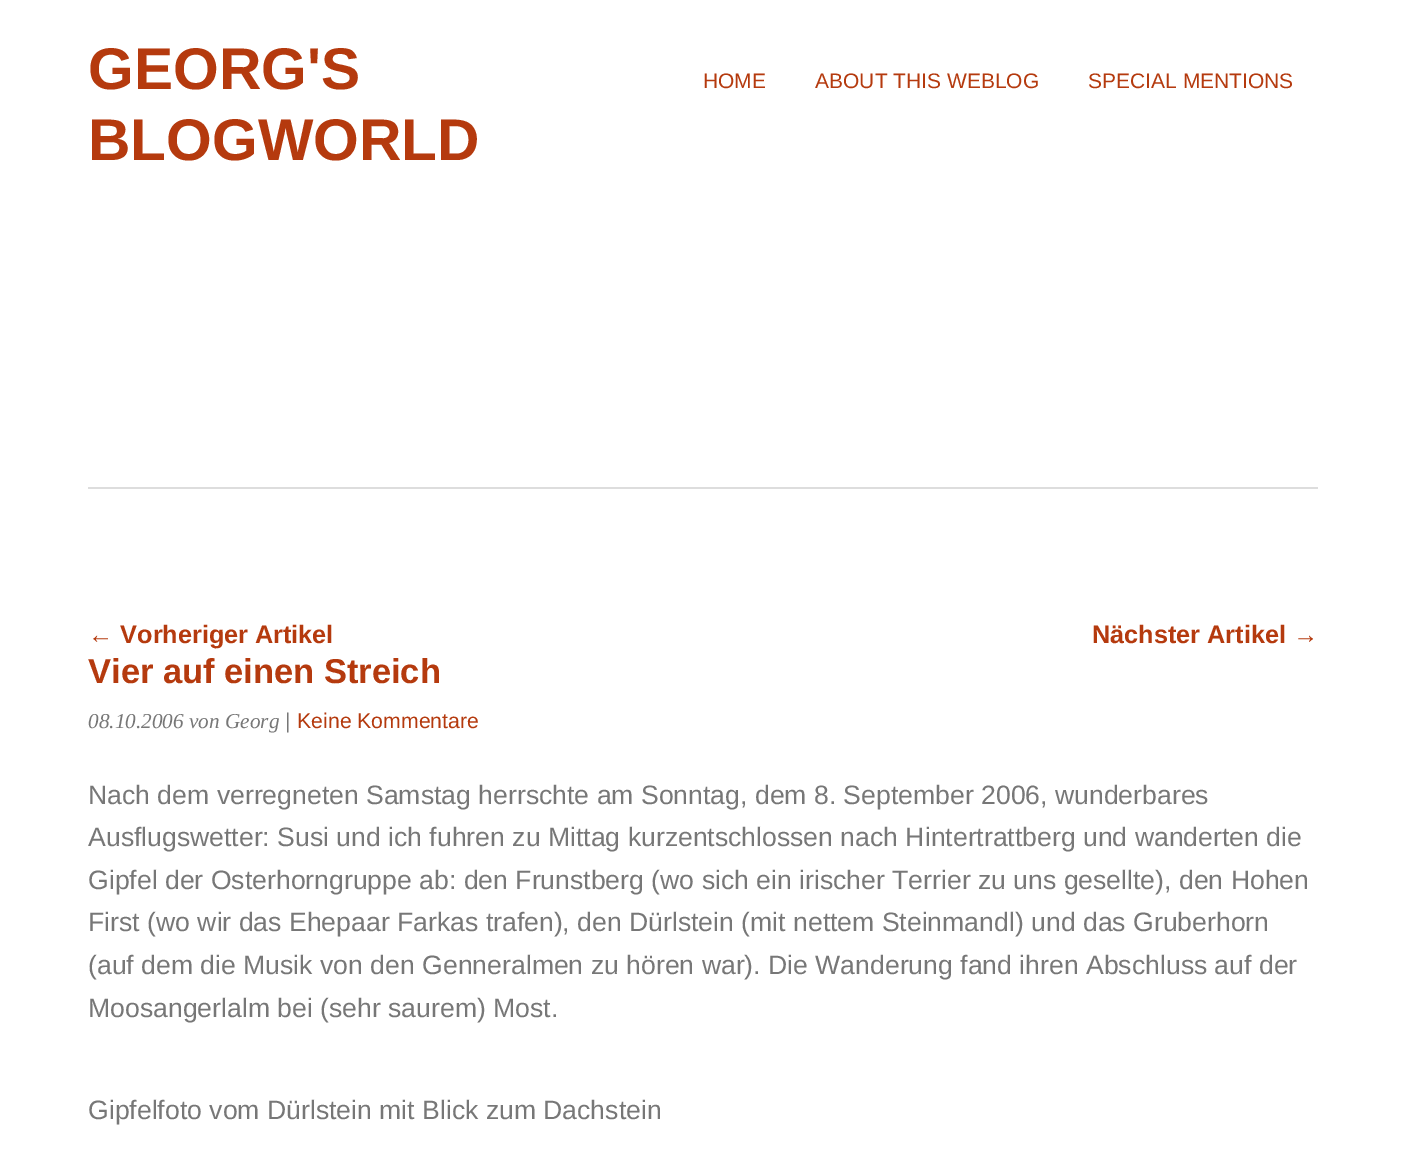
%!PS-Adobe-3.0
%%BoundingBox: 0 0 1404 1165
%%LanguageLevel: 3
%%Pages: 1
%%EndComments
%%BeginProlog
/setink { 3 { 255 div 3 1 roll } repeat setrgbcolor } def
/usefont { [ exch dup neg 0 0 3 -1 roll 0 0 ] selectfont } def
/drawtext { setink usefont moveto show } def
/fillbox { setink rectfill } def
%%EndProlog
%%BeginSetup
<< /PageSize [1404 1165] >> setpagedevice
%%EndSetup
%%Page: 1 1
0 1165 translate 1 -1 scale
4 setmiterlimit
0 0 1404 1165 255 255 255 fillbox
(GEORG'S) 88 89 /LiberationSans-Bold 58.75 181 58 14 drawtext
(BLOGWORLD) 88 160 /LiberationSans-Bold 58.75 181 58 14 drawtext
(HOME) 703 88 /LiberationSans-Regular 21 181 58 14 drawtext
(ABOUT THIS WEBLOG) 815 88 /LiberationSans-Regular 21 181 58 14 drawtext
(SPECIAL MENTIONS) 1088 88 /LiberationSans-Regular 21 181 58 14 drawtext
88 487 1230 2 221 221 221 fillbox
(← Vorheriger Artikel) 88 643 /LiberationSans-Bold 25.25 181 58 14 drawtext
(Nächster Artikel →) 1092 643 /LiberationSans-Bold 25.25 181 58 14 drawtext
(Vier auf einen Streich) 88 683 /LiberationSans-Bold 34.5 181 58 14 drawtext
(08.10.2006) 88 728 /LiberationSerif-Italic 21.25 119 119 119 drawtext
(von Georg) 189 728 /LiberationSerif-Italic 21.25 119 119 119 drawtext
(|) 285 728 /LiberationSans-Regular 21.25 119 119 119 drawtext
(Keine Kommentare) 297 728 /LiberationSans-Regular 21.25 181 58 14 drawtext
(Nach dem verregneten Samstag herrschte am Sonntag, dem 8. September 2006, wunderbares) 88 804 /LiberationSans-Regular 26.6 119 119 119 drawtext
(Ausflugswetter: Susi und ich fuhren zu Mittag kurzentschlossen nach Hintertrattberg und wanderten die) 88 846 /LiberationSans-Regular 26.6 119 119 119 drawtext
(Gipfel der Osterhorngruppe ab: den Frunstberg \(wo sich ein irischer Terrier zu uns gesellte\), den Hohen) 88 889 /LiberationSans-Regular 26.6 119 119 119 drawtext
(First \(wo wir das Ehepaar Farkas trafen\), den Dürlstein \(mit nettem Steinmandl\) und das Gruberhorn) 88 931 /LiberationSans-Regular 26.6 119 119 119 drawtext
(\(auf dem die Musik von den Genneralmen zu hören war\). Die Wanderung fand ihren Abschluss auf der) 88 974 /LiberationSans-Regular 26.6 119 119 119 drawtext
(Moosangerlalm bei \(sehr saurem\) Most.) 88 1017 /LiberationSans-Regular 26.6 119 119 119 drawtext
(Gipfelfoto vom Dürlstein mit Blick zum Dachstein) 88 1119 /LiberationSans-Regular 26.6 119 119 119 drawtext
showpage
%%EOF
